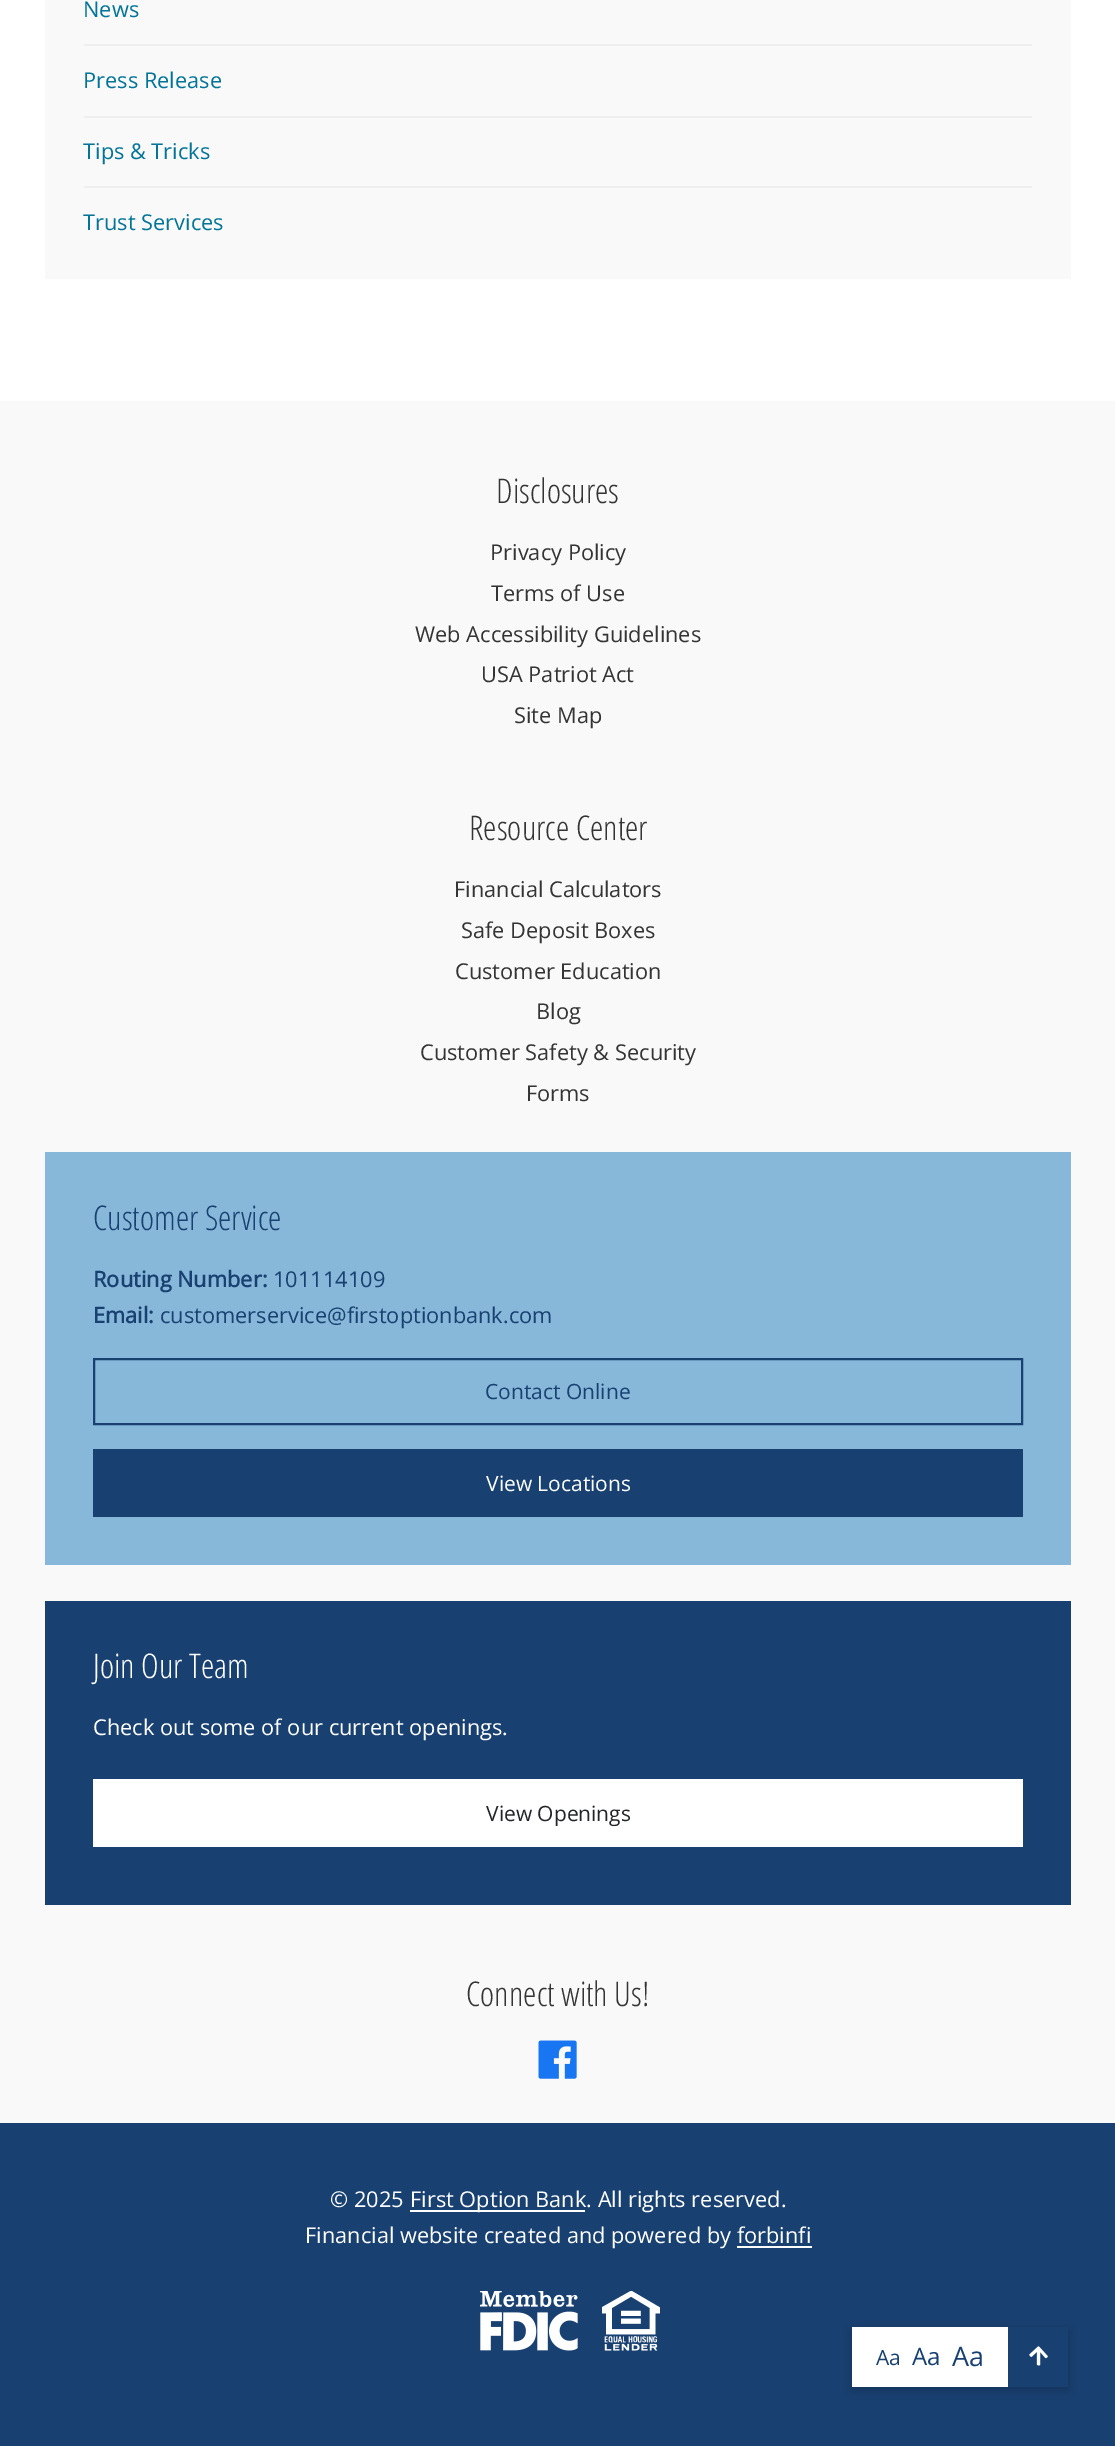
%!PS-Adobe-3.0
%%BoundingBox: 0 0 1115 2446
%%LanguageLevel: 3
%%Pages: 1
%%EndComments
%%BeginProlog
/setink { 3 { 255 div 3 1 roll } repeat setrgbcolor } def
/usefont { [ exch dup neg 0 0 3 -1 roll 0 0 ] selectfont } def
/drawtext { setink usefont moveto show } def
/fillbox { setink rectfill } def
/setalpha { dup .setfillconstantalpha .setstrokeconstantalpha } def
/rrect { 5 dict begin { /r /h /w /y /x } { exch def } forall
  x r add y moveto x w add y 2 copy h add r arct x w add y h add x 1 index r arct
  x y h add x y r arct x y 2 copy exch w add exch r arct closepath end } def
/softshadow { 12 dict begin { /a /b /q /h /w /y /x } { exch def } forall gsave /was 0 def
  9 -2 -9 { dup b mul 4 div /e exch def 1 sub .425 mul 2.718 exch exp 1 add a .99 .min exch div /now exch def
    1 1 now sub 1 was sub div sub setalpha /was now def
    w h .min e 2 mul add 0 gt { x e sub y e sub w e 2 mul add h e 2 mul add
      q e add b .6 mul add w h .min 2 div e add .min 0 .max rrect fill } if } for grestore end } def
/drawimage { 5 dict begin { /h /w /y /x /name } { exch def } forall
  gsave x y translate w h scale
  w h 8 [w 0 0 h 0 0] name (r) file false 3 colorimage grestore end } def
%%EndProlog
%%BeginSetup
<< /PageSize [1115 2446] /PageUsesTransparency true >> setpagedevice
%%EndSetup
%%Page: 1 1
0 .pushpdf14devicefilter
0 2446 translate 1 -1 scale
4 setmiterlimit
0 0 1115 2446 255 255 255 fillbox
45 0 1026 279 249 249 249 fillbox
84 44 948 2 238 238 238 fillbox
(News) 83 17 /OpenSans-Regular 21.8 2 116 151 drawtext
84 116 948 2 238 238 238 fillbox
(Press Release) 83 88 /OpenSans-Regular 21.8 2 116 151 drawtext
84 186 948 2 238 238 238 fillbox
(Tips & Tricks) 83 159 /OpenSans-Regular 21.8 2 116 151 drawtext
(Trust Services) 83 230 /OpenSans-Regular 21.8 2 116 151 drawtext
0 401 1115 1722 249 249 249 fillbox
(Disclosures) 496 503 /OpenSansCondensed-Light 34 52 52 52 drawtext
(Privacy Policy) 490 560 /OpenSans-Regular 21.8 52 52 52 drawtext
(Terms of Use) 491 601 /OpenSans-Regular 21.8 52 52 52 drawtext
(Web Accessibility Guidelines) 415 642 /OpenSans-Regular 21.8 52 52 52 drawtext
(USA Patriot Act) 481 682 /OpenSans-Regular 21.8 52 52 52 drawtext
(Site Map) 514 723 /OpenSans-Regular 21.8 52 52 52 drawtext
(Resource Center) 469 840 /OpenSansCondensed-Light 34 52 52 52 drawtext
(Financial Calculators) 454 897 /OpenSans-Regular 21.8 52 52 52 drawtext
(Safe Deposit Boxes) 461 938 /OpenSans-Regular 21.8 52 52 52 drawtext
(Customer Education) 455 979 /OpenSans-Regular 21.8 52 52 52 drawtext
(Blog) 536 1019 /OpenSans-Regular 21.8 52 52 52 drawtext
(Customer Safety & Security) 420 1060 /OpenSans-Regular 21.8 52 52 52 drawtext
(Forms) 526 1101 /OpenSans-Regular 21.8 52 52 52 drawtext
45 1152 1026 413 135 184 217 fillbox
(Customer Service) 93 1230 /OpenSansCondensed-Light 34 24 64 113 drawtext
(Routing Number:) 93 1287 /OpenSans-Bold 21.8 24 64 113 drawtext
(101114109) 273 1287 /OpenSans-Regular 21.8 24 64 113 drawtext
(Email:) 93 1323 /OpenSans-Bold 21.8 24 64 113 drawtext
(customerservice@firstoptionbank.com) 160 1323 /OpenSans-Regular 21.8 24 64 113 drawtext
2 setlinewidth
94 1359 928 65 rectstroke
(Contact Online) 485 1399 /OpenSans-Regular 21 24 64 113 drawtext
93 1449 930 68 24 64 113 fillbox
(View Locations) 486 1491 /OpenSans-Regular 21 255 255 255 drawtext
45 1601 1026 304 24 64 113 fillbox
(Join Our Team) 93 1678 /OpenSansCondensed-Light 34 255 255 255 drawtext
(Check out some of our current openings.) 93 1735 /OpenSans-Regular 21.8 255 255 255 drawtext
93 1779 930 68 255 255 255 fillbox
(View Openings) 486 1821 /OpenSans-Regular 21 33 37 41 drawtext
(Connect with Us!) 466 2006 /OpenSansCondensed-Light 34 52 52 52 drawtext
(assets/img1.rgb) 538 2040 39 39 drawimage
0 2123 1115 323 24 64 113 fillbox
(© 2025) 330 2207 /OpenSans-Regular 21.8 255 255 255 drawtext
410 2210 175 2 255 255 255 fillbox
(First Option Bank. All rights reserved.) 410 2207 /OpenSans-Regular 21.8 255 255 255 drawtext
(Financial website created and powered by forbinfi) 305 2243 /OpenSans-Regular 21.8 255 255 255 drawtext
737 2246 75 2 255 255 255 fillbox
(assets/img2.rgb) 480 2291 98 60 drawimage
(assets/img3.rgb) 602 2291 58 60 drawimage
0 0 0 setink
852 2330 216 60 0 4.5 0.2 softshadow
852 2327 156 60 255 255 255 fillbox
(Aa) 876 2365 /OpenSans-Regular 21 24 64 113 drawtext
(Aa) 912 2365 /OpenSans-Regular 24 24 64 113 drawtext
(Aa) 952 2366 /OpenSans-Regular 27 24 64 113 drawtext
1008 2327 60 60 24 64 113 fillbox
(assets/img4.rgb) 1029 2346 19 20 drawimage
.poppdf14devicefilter showpage
%%EOF
